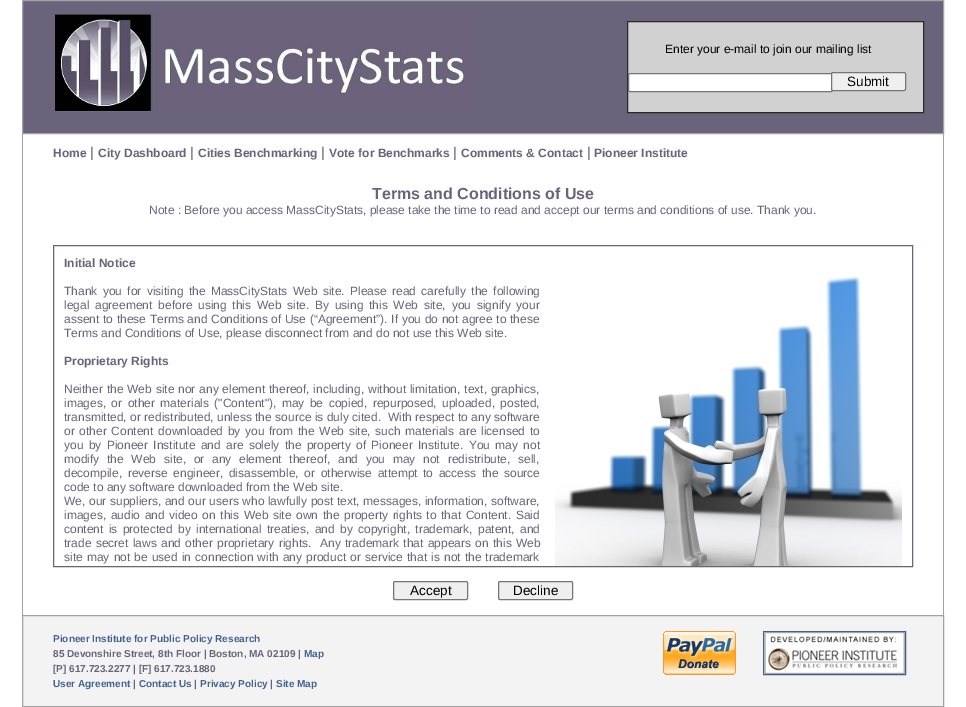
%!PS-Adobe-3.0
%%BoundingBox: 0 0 966 707
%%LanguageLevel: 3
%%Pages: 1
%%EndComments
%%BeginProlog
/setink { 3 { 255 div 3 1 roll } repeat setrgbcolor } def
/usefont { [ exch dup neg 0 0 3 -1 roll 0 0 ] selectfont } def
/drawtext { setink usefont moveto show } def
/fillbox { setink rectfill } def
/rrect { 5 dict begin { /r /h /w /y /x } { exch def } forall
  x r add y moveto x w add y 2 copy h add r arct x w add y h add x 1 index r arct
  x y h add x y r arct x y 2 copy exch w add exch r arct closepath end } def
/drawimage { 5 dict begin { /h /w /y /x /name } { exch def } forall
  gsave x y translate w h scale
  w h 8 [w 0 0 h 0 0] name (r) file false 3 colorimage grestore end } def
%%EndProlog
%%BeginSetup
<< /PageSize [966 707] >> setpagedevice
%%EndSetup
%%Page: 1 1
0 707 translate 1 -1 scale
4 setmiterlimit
0 0 966 707 255 255 255 fillbox
105 99 123 setink
22.5 0.5 moveto 943.5 0.5 lineto 943.5 133.5 lineto 22.5 133.5 lineto closepath gsave fill grestore
162 162 162 setink
stroke
(assets/img1.rgb) 54 13 421 100 drawimage
209 209 209 setink
627.5 21.5 moveto 923.5 21.5 lineto 923.5 112.5 lineto 627.5 112.5 lineto closepath gsave fill grestore
42 42 42 setink
stroke
(Enter your e-mail to join our mailing list) 665 53 /LiberationSans-Regular 12 0 0 0 drawtext
255 255 255 setink
628.5 73.5 204 18 1.5 rrect gsave fill grestore
118 118 118 setink
stroke
239 239 239 setink
831.5 72.5 74 18 1.5 rrect gsave fill grestore
118 118 118 setink
stroke
(Submit) 847 86 /LiberationSans-Regular 13.5 0 0 0 drawtext
943 134 1 481 162 162 162 fillbox
22 134 1 481 162 162 162 fillbox
(Home) 53 157 /LiberationSans-Bold 12 105 99 123 drawtext
(|) 90 157 /LiberationSans-Regular 14 105 99 123 drawtext
(City Dashboard) 98 157 /LiberationSans-Bold 12 105 99 123 drawtext
(|) 190 157 /LiberationSans-Regular 14 105 99 123 drawtext
(Cities Benchmarking) 198 157 /LiberationSans-Bold 12 105 99 123 drawtext
(|) 321 157 /LiberationSans-Regular 14 105 99 123 drawtext
(Vote for Benchmarks) 329 157 /LiberationSans-Bold 12 105 99 123 drawtext
(|) 453 157 /LiberationSans-Regular 14 105 99 123 drawtext
(Comments & Contact) 461 157 /LiberationSans-Bold 12 105 99 123 drawtext
(|) 587 157 /LiberationSans-Regular 14 105 99 123 drawtext
(Pioneer Institute) 594 157 /LiberationSans-Bold 12 105 99 123 drawtext
(Terms and Conditions of Use) 372 199 /LiberationSans-Bold 16 105 99 123 drawtext
(Note : Before you access MassCityStats, please take the time to read and accept our terms and conditions of use. Thank you.) 149 214 /LiberationSans-Regular 12 105 99 123 drawtext
53.5 245.5 859 321 rectstroke
(Initial Notice) 64 267 /LiberationSans-Bold 12 105 99 123 drawtext
(assets/img2.rgb) 555 276 347 290 drawimage
/LiberationSans-Regular 12 usefont
64 295 moveto 2 0 32 (Thank you for visiting the MassCityStats Web site. Please read carefully the following) widthshow
64 309 moveto 2.4 0 32 (legal agreement before using this Web site. By using this Web site, you signify your) widthshow
64 323 moveto 0.3 0 32 (assent to these Terms and Conditions of Use \(“Agreement”\). If you do not agree to these) widthshow
(Terms and Conditions of Use, please disconnect from and do not use this Web site.) 64 337 /LiberationSans-Regular 12 105 99 123 drawtext
(Proprietary Rights) 64 365 /LiberationSans-Bold 12 105 99 123 drawtext
/LiberationSans-Regular 12 usefont
64 393 moveto 0.5 0 32 (Neither the Web site nor any element thereof, including, without limitation, text, graphics,) widthshow
64 407 moveto 2.1 0 32 (images, or other materials \("Content"\), may be copied, repurposed, uploaded, posted,) widthshow
64 421 moveto 0.1 0 32 (transmitted, or redistributed, unless the source is duly cited.  With respect to any software) widthshow
64 435 moveto 1.4 0 32 (or other Content downloaded by you from the Web site, such materials are licensed to) widthshow
64 449 moveto 2 0 32 (you by Pioneer Institute and are solely the property of Pioneer Institute. You may not) widthshow
64 463 moveto 4.4 0 32 (modify the Web site, or any element thereof, and you may not redistribute, sell,) widthshow
64 477 moveto 2.25 0 32 (decompile, reverse engineer, disassemble, or otherwise attempt to access the source) widthshow
(code to any software downloaded from the Web site.) 64 491 /LiberationSans-Regular 12 105 99 123 drawtext
64 505 moveto 0.25 0 32 (We, our suppliers, and our users who lawfully post text, messages, information, software,) widthshow
64 519 moveto 1.25 0 32 (images, audio and video on this Web site own the property rights to that Content. Said) widthshow
64 533 moveto 2 0 32 (content is protected by international treaties, and by copyright, trademark, patent, and) widthshow
64 547 moveto 1 0 32 (trade secret laws and other proprietary rights.  Any trademark that appears on this Web) widthshow
64 561 moveto 0.75 0 32 (site may not be used in connection with any product or service that is not the trademark) widthshow
239 239 239 setink
393.5 581.5 74 18 1.5 rrect gsave fill grestore
118 118 118 setink
stroke
(Accept) 410 595 /LiberationSans-Regular 13.5 0 0 0 drawtext
239 239 239 setink
498.5 581.5 74 18 1.5 rrect gsave fill grestore
118 118 118 setink
stroke
(Decline) 513 595 /LiberationSans-Regular 13.5 0 0 0 drawtext
243 243 243 setink
22.5 615.5 moveto 943.5 615.5 lineto 943.5 706.5 lineto 22.5 706.5 lineto closepath gsave fill grestore
162 162 162 setink
stroke
(Pioneer Institute for Public Policy Research) 53 642 /LiberationSans-Bold 10 66 97 144 drawtext
(85 Devonshire Street, 8th Floor | Boston, MA 02109 |) 53 657 /LiberationSans-Bold 10 105 99 123 drawtext
(Map) 304 657 /LiberationSans-Bold 10 66 97 144 drawtext
([P] 617.723.2277 | [F] 617.723.1880) 53 672 /LiberationSans-Bold 10 105 99 123 drawtext
(User Agreement) 53 687 /LiberationSans-Bold 10 66 97 144 drawtext
(|) 133 687 /LiberationSans-Bold 10 105 99 123 drawtext
(Contact Us) 139 687 /LiberationSans-Bold 10 66 97 144 drawtext
(|) 194 687 /LiberationSans-Bold 10 105 99 123 drawtext
(Privacy Policy) 200 687 /LiberationSans-Bold 10 66 97 144 drawtext
(|) 270 687 /LiberationSans-Bold 10 105 99 123 drawtext
(Site Map) 276 687 /LiberationSans-Bold 10 66 97 144 drawtext
(assets/img3.rgb) 663 631 73 44 drawimage
763.5 631.5 142 43 rectstroke
(assets/img4.rgb) 764 632 141 42 drawimage
showpage
%%EOF
